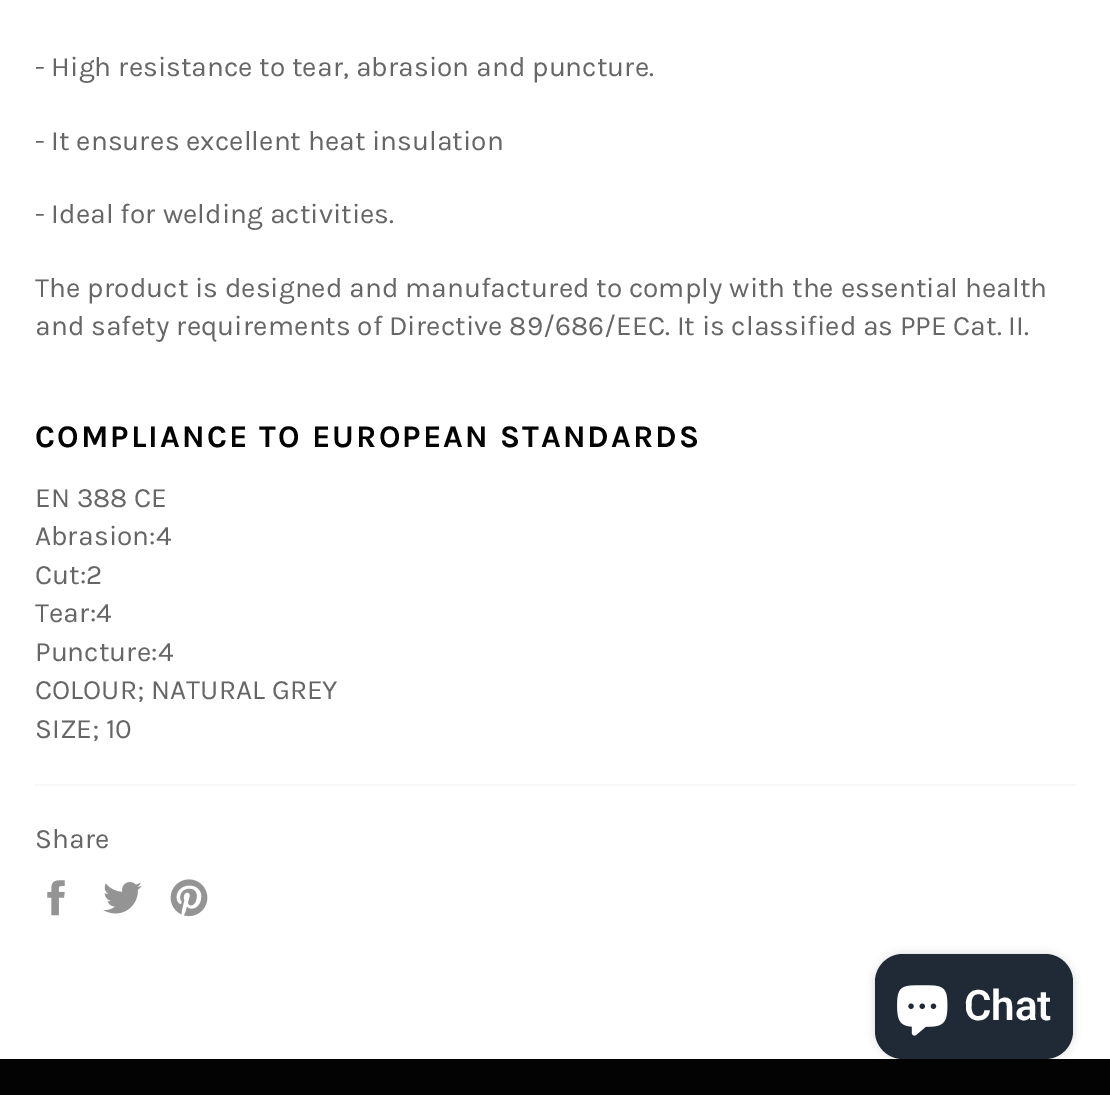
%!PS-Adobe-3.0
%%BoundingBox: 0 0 1110 1095
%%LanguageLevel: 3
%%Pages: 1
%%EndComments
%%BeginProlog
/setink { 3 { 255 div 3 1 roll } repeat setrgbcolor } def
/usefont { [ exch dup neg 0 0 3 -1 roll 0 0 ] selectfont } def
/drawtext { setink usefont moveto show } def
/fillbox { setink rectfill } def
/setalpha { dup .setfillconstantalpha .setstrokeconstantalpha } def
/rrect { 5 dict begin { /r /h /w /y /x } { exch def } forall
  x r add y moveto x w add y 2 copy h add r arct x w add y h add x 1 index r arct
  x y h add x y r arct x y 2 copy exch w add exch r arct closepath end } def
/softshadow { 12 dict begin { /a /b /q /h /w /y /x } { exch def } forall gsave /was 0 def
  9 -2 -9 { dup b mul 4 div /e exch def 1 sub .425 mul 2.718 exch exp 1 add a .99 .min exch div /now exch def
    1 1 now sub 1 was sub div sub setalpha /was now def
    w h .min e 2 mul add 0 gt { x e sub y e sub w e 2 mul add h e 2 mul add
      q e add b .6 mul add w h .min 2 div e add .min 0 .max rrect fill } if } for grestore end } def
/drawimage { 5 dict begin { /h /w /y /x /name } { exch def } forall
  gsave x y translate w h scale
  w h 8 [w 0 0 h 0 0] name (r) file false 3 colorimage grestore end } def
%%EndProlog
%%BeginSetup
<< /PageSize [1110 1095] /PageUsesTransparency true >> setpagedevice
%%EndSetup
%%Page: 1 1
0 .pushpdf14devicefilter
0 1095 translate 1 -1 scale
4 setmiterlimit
0 0 1110 1095 255 255 255 fillbox
(- High resistance to tear, abrasion and puncture.) 35 76 /Karla-Regular 28 102 102 102 drawtext
(- It ensures excellent heat insulation) 35 150 /Karla-Regular 28 102 102 102 drawtext
(- Ideal for welding activities.) 35 223 /Karla-Regular 28 102 102 102 drawtext
(The product is designed and manufactured to comply with the essential health) 35 297 /Karla-Regular 28 102 102 102 drawtext
(and safety requirements of Directive 89/686/EEC. It is classified as PPE Cat. II.) 35 335 /Karla-Regular 28 102 102 102 drawtext
/Karla-Bold 31.5 usefont
3 3 3 setink
35 447 moveto 2.1 0 (COMPLIANCE TO EUROPEAN STANDARDS) ashow
(EN 388 CE) 35 507 /Karla-Regular 28 102 102 102 drawtext
(Abrasion:4) 35 545 /Karla-Regular 28 102 102 102 drawtext
(Cut:2) 35 584 /Karla-Regular 28 102 102 102 drawtext
(Tear:4) 35 622 /Karla-Regular 28 102 102 102 drawtext
(Puncture:4) 35 661 /Karla-Regular 28 102 102 102 drawtext
(COLOUR; NATURAL GREY) 35 699 /Karla-Regular 28 102 102 102 drawtext
(SIZE; 10) 35 738 /Karla-Regular 28 102 102 102 drawtext
35 784 1041 2 247 247 247 fillbox
(Share) 35 848 /Karla-Regular 28 102 102 102 drawtext
(assets/img1.rgb) 47 880 18 36 drawimage
(assets/img2.rgb) 103 882 39 32 drawimage
(assets/img3.rgb) 170 879 38 38 drawimage
0 1059 1110 36 3 3 3 fillbox
0 0 0 setink
875 954 198 105 28 4.5 0.15 softshadow
32 42 54 setink
875 954 198 105 28 rrect fill
(assets/img4.rgb) 897 985 51 51 drawimage
(Chat) 964 1020 /Roboto-SemiBold 42 255 255 255 drawtext
.poppdf14devicefilter showpage
%%EOF
